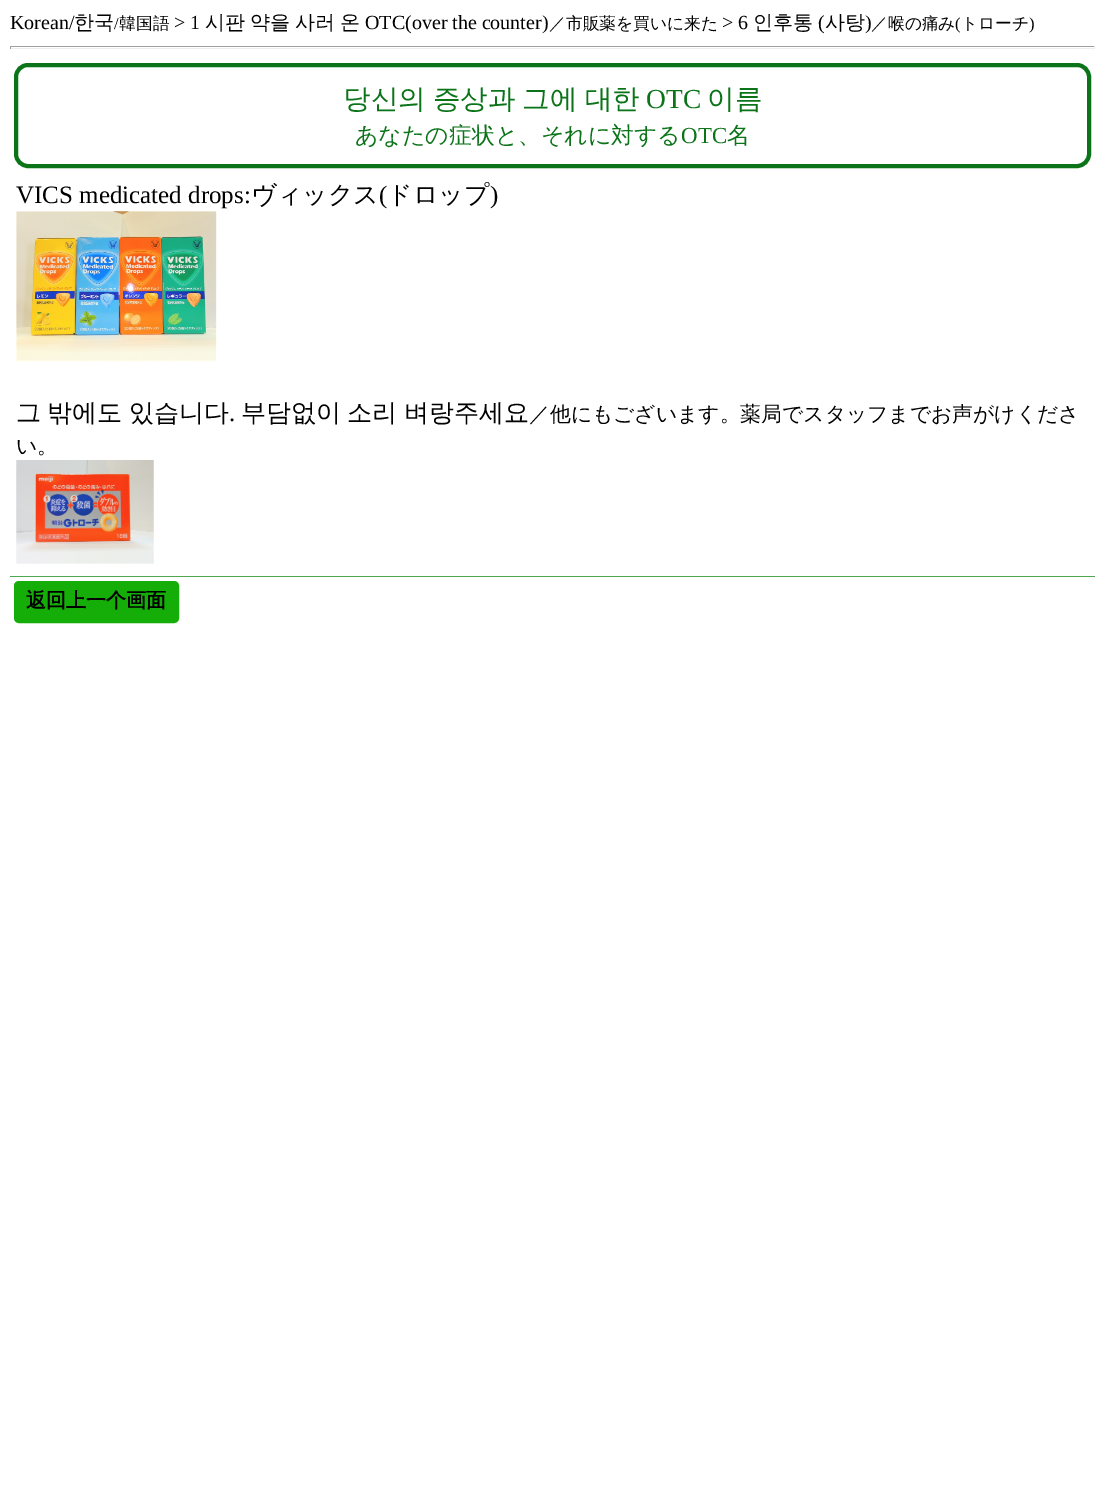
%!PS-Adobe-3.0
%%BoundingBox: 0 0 1105 1502
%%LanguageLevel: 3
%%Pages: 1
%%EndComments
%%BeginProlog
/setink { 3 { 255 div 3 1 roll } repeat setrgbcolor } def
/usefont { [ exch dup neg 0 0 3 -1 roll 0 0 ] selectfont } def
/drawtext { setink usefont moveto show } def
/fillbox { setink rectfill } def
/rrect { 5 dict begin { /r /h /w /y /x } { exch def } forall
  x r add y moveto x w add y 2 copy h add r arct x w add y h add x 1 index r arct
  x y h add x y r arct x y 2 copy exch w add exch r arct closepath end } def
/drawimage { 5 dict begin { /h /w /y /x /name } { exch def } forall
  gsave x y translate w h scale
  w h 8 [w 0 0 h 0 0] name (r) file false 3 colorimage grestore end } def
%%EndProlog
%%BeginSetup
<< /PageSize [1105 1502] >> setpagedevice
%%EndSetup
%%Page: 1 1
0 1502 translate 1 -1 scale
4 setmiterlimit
0 0 1105 1502 255 255 255 fillbox
(Korean/) 10 29 /LiberationSerif-Regular 20 0 0 0 drawtext
(한국) 74 29 /WenQuanYiZenHei-Medium 20 0 0 0 drawtext
(/) 114 29 /LiberationSerif-Regular 16.75 0 0 0 drawtext
(韓国語) 119 29 /WenQuanYiZenHei-Medium 16.75 0 0 0 drawtext
(> 1) 174 29 /LiberationSerif-Regular 20 0 0 0 drawtext
(시판) 205 29 /WenQuanYiZenHei-Medium 20 0 0 0 drawtext
(약을) 250 29 /WenQuanYiZenHei-Medium 20 0 0 0 drawtext
(사러) 295 29 /WenQuanYiZenHei-Medium 20 0 0 0 drawtext
(온) 340 29 /WenQuanYiZenHei-Medium 20 0 0 0 drawtext
(OTC\(over the counter\)) 365 29 /LiberationSerif-Regular 20 0 0 0 drawtext
(／市販薬を買いに来た) 549 29 /WenQuanYiZenHei-Medium 16.75 0 0 0 drawtext
(> 6) 722 29 /LiberationSerif-Regular 20 0 0 0 drawtext
(인후통) 753 29 /WenQuanYiZenHei-Medium 20 0 0 0 drawtext
(\() 818 29 /LiberationSerif-Regular 20 0 0 0 drawtext
(사탕) 825 29 /WenQuanYiZenHei-Medium 20 0 0 0 drawtext
(\)) 865 29 /LiberationSerif-Regular 20 0 0 0 drawtext
(／喉の痛み) 871 29 /WenQuanYiZenHei-Medium 16.75 0 0 0 drawtext
(\() 955 29 /LiberationSerif-Regular 16.75 0 0 0 drawtext
(トローチ) 961 29 /WenQuanYiZenHei-Medium 16.75 0 0 0 drawtext
(\)) 1029 29 /LiberationSerif-Regular 16.75 0 0 0 drawtext
10 46 1085 1 159 159 159 fillbox
1094 46 1 3 238 238 238 fillbox
10 48 1085 1 238 238 238 fillbox
10 46 1 3 159 159 159 fillbox
11 116 25 setink
4 setlinewidth
16 65 1073 101 12 rrect stroke
/WenQuanYiZenHei-Medium 27.5 usefont
343 108 moveto -1 0 32 (당신의 증상과 그에 대한) widthshow
(OTC) 646 108 /LiberationSerif-Regular 27.5 11 116 25 drawtext
(이름) 707 108 /WenQuanYiZenHei-Medium 27.5 11 116 25 drawtext
(あなたの症状と、それに対する) 355 143 /WenQuanYiZenHei-Medium 22.9 11 116 25 drawtext
(OTC) 681 143 /LiberationSerif-Regular 22.9 11 116 25 drawtext
(名) 727 143 /WenQuanYiZenHei-Medium 22.9 11 116 25 drawtext
10 576 1085 1 79 167 79 fillbox
(VICS medicated drops:) 16 203 /LiberationSerif-Regular 25 0 0 0 drawtext
(ヴィックス) 251 203 /WenQuanYiZenHei-Medium 25 0 0 0 drawtext
(\() 379 203 /LiberationSerif-Regular 25 0 0 0 drawtext
(ドロップ) 387 203 /WenQuanYiZenHei-Medium 25 0 0 0 drawtext
(\)) 490 203 /LiberationSerif-Regular 25 0 0 0 drawtext
(assets/img1.rgb) 16 211 201 151 drawimage
/WenQuanYiZenHei-Medium 25 usefont
16 421 moveto -1 0 32 (그 밖에도 있습니다) widthshow
(.) 229 421 /LiberationSerif-Regular 25 0 0 0 drawtext
/WenQuanYiZenHei-Medium 25 usefont
241 421 moveto -1 0 32 (부담없이 소리 벼랑주세요) widthshow
(／他にもございます。薬局でスタッフまでお声がけくださ) 529 421 /WenQuanYiZenHei-Medium 20.8 0 0 0 drawtext
(い。) 16 453 /WenQuanYiZenHei-Medium 20.8 0 0 0 drawtext
(assets/img2.rgb) 16 460 138 104 drawimage
21 173 7 setink
15.5 582.5 162 39 3.5 rrect gsave fill grestore
3 setlinewidth
stroke
(返回上一个画面) 26 607 /WenQuanYiZenHei-Bold 20 0 0 0 drawtext
showpage
%%EOF
